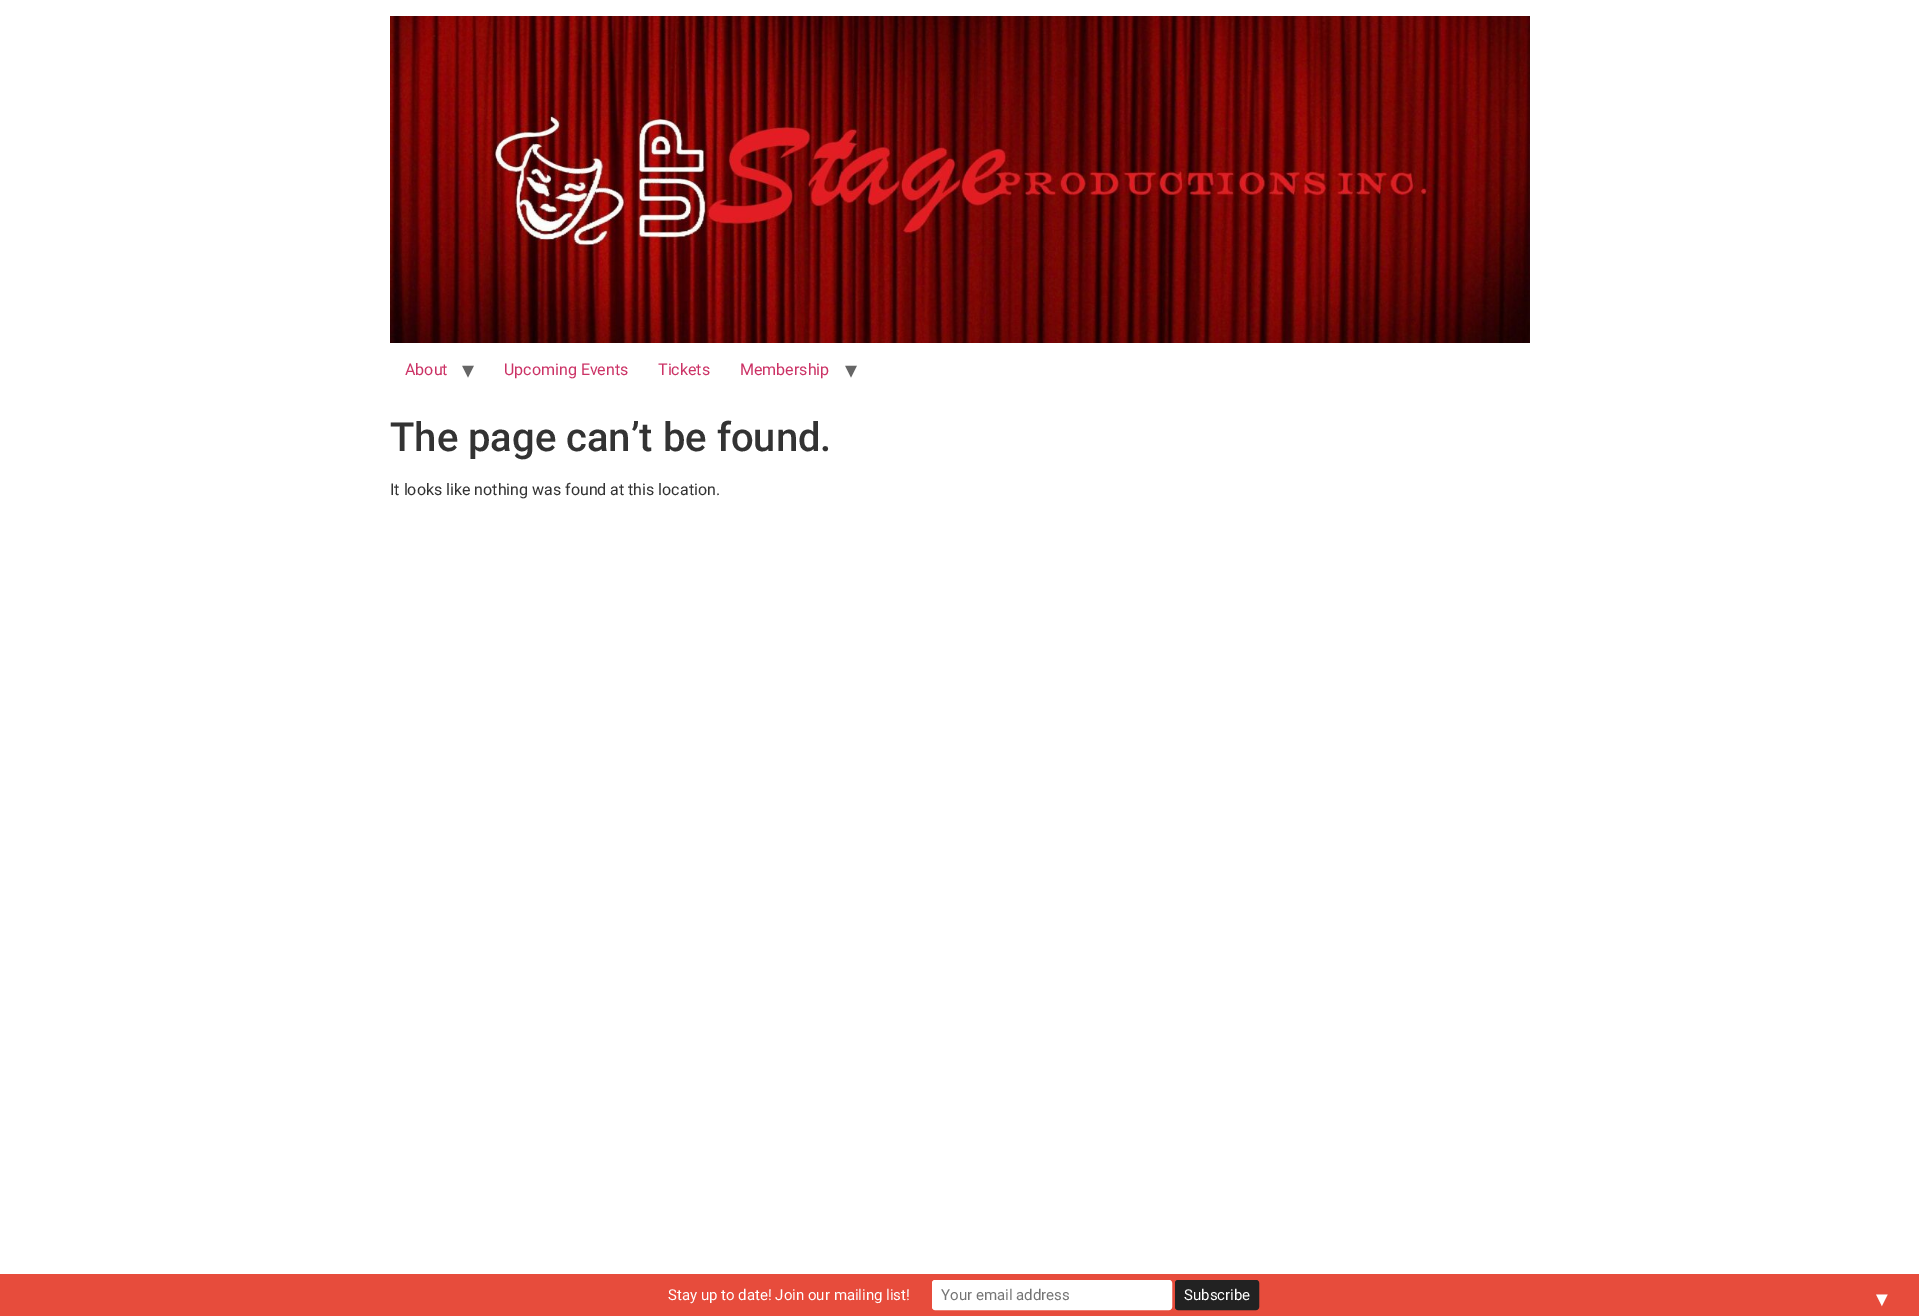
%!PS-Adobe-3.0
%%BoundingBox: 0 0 1919 1316
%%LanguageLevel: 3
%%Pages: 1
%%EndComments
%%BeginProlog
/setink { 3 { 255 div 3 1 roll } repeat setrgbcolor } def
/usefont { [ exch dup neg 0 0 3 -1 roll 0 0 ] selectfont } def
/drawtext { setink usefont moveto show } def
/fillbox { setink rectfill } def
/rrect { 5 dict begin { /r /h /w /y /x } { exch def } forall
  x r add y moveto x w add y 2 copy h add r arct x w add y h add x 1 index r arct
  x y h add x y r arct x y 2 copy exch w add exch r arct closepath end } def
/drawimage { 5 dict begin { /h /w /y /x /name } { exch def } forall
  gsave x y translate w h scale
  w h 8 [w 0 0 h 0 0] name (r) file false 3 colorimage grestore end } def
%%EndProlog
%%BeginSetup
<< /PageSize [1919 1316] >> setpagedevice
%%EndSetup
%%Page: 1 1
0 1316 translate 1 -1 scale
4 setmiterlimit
0 0 1919 1316 255 255 255 fillbox
(assets/img1.rgb) 390 16 1140 327 drawimage
(About) 405 375 /Roboto-Regular 16 204 51 102 drawtext
(▾) 462 378 /DejaVuSans-Regular 24 102 102 102 drawtext
(Upcoming Events) 504 375 /Roboto-Regular 16 204 51 102 drawtext
(Tickets) 658 375 /Roboto-Regular 16 204 51 102 drawtext
(Membership) 740 375 /Roboto-Regular 16 204 51 102 drawtext
(▾) 845 378 /DejaVuSans-Regular 24 102 102 102 drawtext
(The page can’t be found.) 390 451 /Roboto-Medium 40 51 51 51 drawtext
(It looks like nothing was found at this location.) 390 495 /Roboto-Regular 16 51 51 51 drawtext
0 1274 1919 42 231 76 60 fillbox
(Stay up to date! Join our mailing list!) 668 1300 /Roboto-Regular 15 255 255 255 drawtext
932.5 1280.5 239 29 2.5 rrect gsave fill grestore
stroke
(Your email address) 941 1300 /Roboto-Regular 15 117 117 117 drawtext
34 34 34 setink
1175.5 1280.5 83 29 2.5 rrect gsave fill grestore
stroke
(Subscribe) 1184 1300 /Roboto-Regular 15 255 255 255 drawtext
(▼) 1872 1306 /LiberationSans-Regular 20 255 255 255 drawtext
showpage
%%EOF
